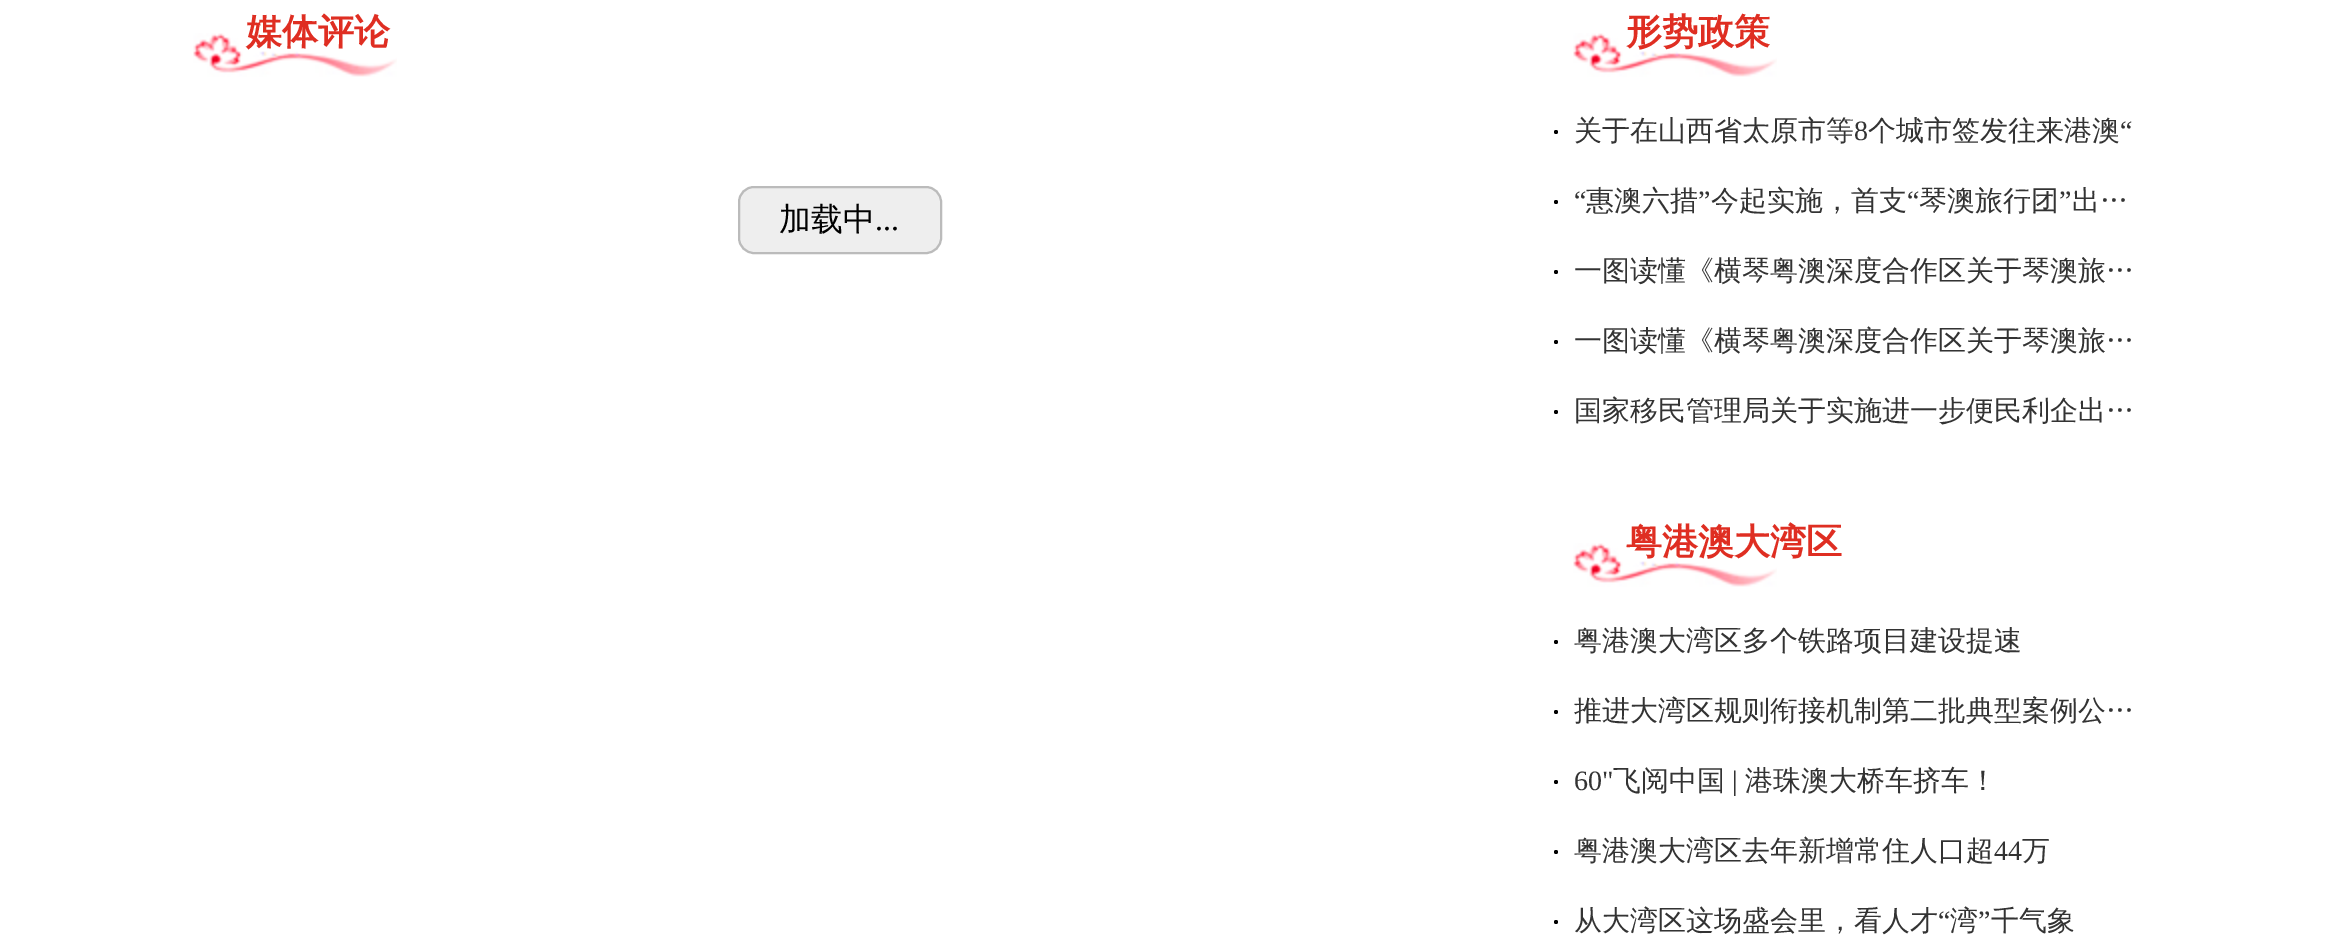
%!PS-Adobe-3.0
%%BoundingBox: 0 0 2347 943
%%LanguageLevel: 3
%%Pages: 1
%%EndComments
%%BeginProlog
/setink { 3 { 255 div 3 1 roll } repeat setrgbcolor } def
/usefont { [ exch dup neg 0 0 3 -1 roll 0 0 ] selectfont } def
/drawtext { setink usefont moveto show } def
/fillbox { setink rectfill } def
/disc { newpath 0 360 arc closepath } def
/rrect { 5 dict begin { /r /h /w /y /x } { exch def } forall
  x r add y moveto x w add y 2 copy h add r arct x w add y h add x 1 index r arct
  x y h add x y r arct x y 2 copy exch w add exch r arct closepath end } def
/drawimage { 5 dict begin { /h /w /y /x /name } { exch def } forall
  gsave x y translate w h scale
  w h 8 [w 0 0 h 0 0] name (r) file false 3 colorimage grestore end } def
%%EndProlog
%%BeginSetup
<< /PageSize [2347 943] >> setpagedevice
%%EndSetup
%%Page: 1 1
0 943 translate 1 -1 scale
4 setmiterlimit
0 0 2347 943 255 255 255 fillbox
(assets/img1.rgb) 193 33 204 44 drawimage
(媒体评论) 246 44 /WenQuanYiZenHei-Bold 36 223 46 34 drawtext
238 238 238 setink
739 187 202 66 15 rrect gsave fill grestore
187 187 187 setink
2 setlinewidth
stroke
(加载中) 779 230 /WenQuanYiZenHei-Medium 32 0 0 0 drawtext
(...) 875 230 /LiberationSerif-Regular 32 0 0 0 drawtext
(assets/img1.rgb) 1573 33 204 44 drawimage
(形势政策) 1626 44 /WenQuanYiZenHei-Bold 36 223 46 34 drawtext
(关于在山西省太原市等) 1574 140 /WenQuanYiZenHei-Medium 28 51 51 51 drawtext
(8) 1854 140 /LiberationSerif-Regular 28 51 51 51 drawtext
(个城市签发往来港澳) 1868 140 /WenQuanYiZenHei-Medium 28 51 51 51 drawtext
(“) 2120 140 /LiberationSerif-Regular 28 51 51 51 drawtext
0 0 0 setink
1556 132 2 disc fill
(“) 1574 210 /LiberationSerif-Regular 28 51 51 51 drawtext
(惠澳六措) 1586 210 /WenQuanYiZenHei-Medium 28 51 51 51 drawtext
(”) 1698 210 /LiberationSerif-Regular 28 51 51 51 drawtext
(今起实施，首支) 1711 210 /WenQuanYiZenHei-Medium 28 51 51 51 drawtext
(“) 1907 210 /LiberationSerif-Regular 28 51 51 51 drawtext
(琴澳旅行团) 1919 210 /WenQuanYiZenHei-Medium 28 51 51 51 drawtext
(”) 2059 210 /LiberationSerif-Regular 28 51 51 51 drawtext
(出…) 2072 210 /WenQuanYiZenHei-Medium 28 51 51 51 drawtext
0 0 0 setink
1556 202 2 disc fill
1556 272 2 disc fill
(一图读懂《横琴粤澳深度合作区关于琴澳旅…) 1574 280 /WenQuanYiZenHei-Medium 28 51 51 51 drawtext
0 0 0 setink
1556 342 2 disc fill
(一图读懂《横琴粤澳深度合作区关于琴澳旅…) 1574 350 /WenQuanYiZenHei-Medium 28 51 51 51 drawtext
0 0 0 setink
1556 412 2 disc fill
(国家移民管理局关于实施进一步便民利企出…) 1574 420 /WenQuanYiZenHei-Medium 28 51 51 51 drawtext
(assets/img1.rgb) 1573 543 204 44 drawimage
(粤港澳大湾区) 1626 554 /WenQuanYiZenHei-Bold 36 223 46 34 drawtext
0 0 0 setink
1556 642 2 disc fill
(粤港澳大湾区多个铁路项目建设提速) 1574 650 /WenQuanYiZenHei-Medium 28 51 51 51 drawtext
0 0 0 setink
1556 712 2 disc fill
(推进大湾区规则衔接机制第二批典型案例公…) 1574 720 /WenQuanYiZenHei-Medium 28 51 51 51 drawtext
0 0 0 setink
1556 782 2 disc fill
(60") 1574 790 /LiberationSerif-Regular 28 51 51 51 drawtext
(飞阅中国) 1613 790 /WenQuanYiZenHei-Medium 28 51 51 51 drawtext
(|) 1732 790 /LiberationSerif-Regular 28 51 51 51 drawtext
(港珠澳大桥车挤车！) 1745 790 /WenQuanYiZenHei-Medium 28 51 51 51 drawtext
0 0 0 setink
1556 852 2 disc fill
(粤港澳大湾区去年新增常住人口超) 1574 860 /WenQuanYiZenHei-Medium 28 51 51 51 drawtext
(44) 1994 860 /LiberationSerif-Regular 28 51 51 51 drawtext
(万) 2022 860 /WenQuanYiZenHei-Medium 28 51 51 51 drawtext
(从大湾区这场盛会里，看人才) 1574 930 /WenQuanYiZenHei-Medium 28 51 51 51 drawtext
(“) 1938 930 /LiberationSerif-Regular 28 51 51 51 drawtext
(湾) 1950 930 /WenQuanYiZenHei-Medium 28 51 51 51 drawtext
(”) 1978 930 /LiberationSerif-Regular 28 51 51 51 drawtext
(千气象) 1991 930 /WenQuanYiZenHei-Medium 28 51 51 51 drawtext
0 0 0 setink
1556 922 2 disc fill
showpage
%%EOF
